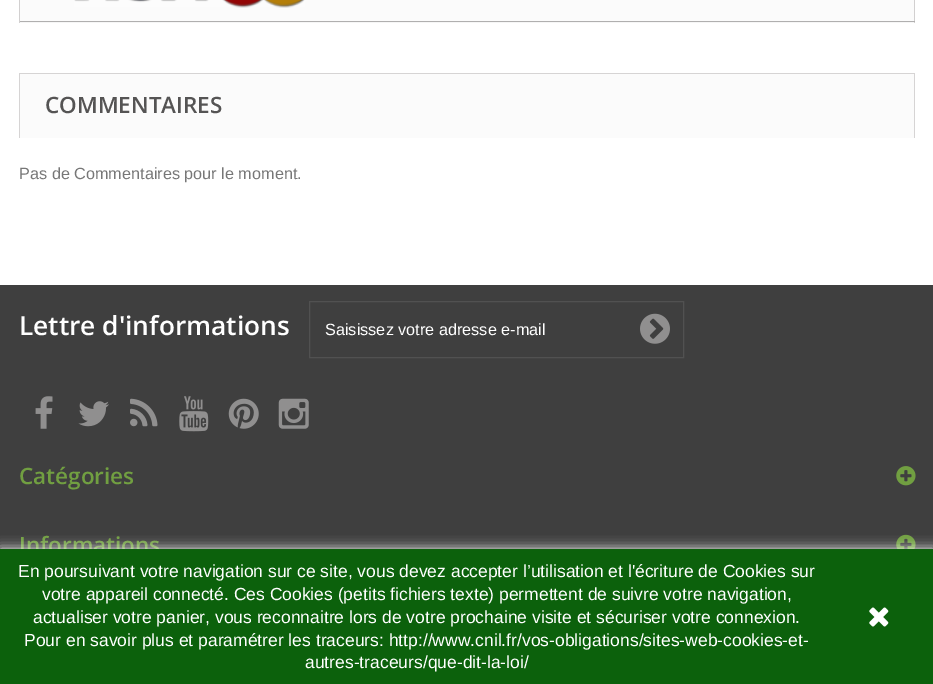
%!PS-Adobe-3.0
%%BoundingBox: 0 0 933 684
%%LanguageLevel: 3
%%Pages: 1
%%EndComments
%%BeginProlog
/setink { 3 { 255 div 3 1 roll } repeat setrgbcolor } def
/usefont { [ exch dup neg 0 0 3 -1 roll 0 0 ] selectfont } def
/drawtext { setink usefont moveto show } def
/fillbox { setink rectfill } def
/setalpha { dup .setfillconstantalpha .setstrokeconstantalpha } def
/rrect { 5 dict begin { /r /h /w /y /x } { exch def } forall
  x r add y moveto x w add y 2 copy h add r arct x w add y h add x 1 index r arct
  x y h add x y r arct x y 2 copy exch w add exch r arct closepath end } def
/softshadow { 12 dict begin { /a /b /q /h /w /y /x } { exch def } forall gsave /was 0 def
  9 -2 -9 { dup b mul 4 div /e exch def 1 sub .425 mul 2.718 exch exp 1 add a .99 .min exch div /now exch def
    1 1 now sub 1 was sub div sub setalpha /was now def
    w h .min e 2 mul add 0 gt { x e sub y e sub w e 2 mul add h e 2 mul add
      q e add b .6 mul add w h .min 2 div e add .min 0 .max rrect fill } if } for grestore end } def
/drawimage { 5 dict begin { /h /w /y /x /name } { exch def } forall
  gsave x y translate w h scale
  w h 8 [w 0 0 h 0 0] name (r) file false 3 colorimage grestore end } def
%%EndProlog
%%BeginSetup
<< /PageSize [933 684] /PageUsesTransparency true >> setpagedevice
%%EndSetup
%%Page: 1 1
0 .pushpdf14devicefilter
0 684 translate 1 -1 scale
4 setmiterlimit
0 0 933 684 255 255 255 fillbox
20 22 894 1 246 246 246 fillbox
914 0 1 23 210 208 208 fillbox
19 21 896 1 176 175 175 fillbox
19 0 1 23 210 208 208 fillbox
gsave 20 0 moveto 914 0 lineto 914 21 lineto 20 21 lineto closepath clip newpath
<< /ShadingType 2 /ColorSpace /DeviceRGB /Coords [467 -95 467 21] /Extend [true true] /Function << /FunctionType 2 /Domain [0 1] /C0 [1 1 1] /C1 [0.984 0.984 0.984] /N 1 >> >> shfill grestore
(assets/img1.rgb) 74 0 231 8 drawimage
20 74 894 64 251 251 251 fillbox
19 73 896 1 214 212 212 fillbox
914 73 1 65 214 212 212 fillbox
19 73 1 65 214 212 212 fillbox
(COMMENTAIRES) 45 113 /OpenSans-SemiBold 22.5 85 84 84 drawtext
(Pas de Commentaires pour le moment.) 19 179 /LiberationSans-Regular 16.25 119 119 119 drawtext
0 285 933 264 63 63 63 fillbox
(Lettre d'informations) 19 335 /OpenSans-SemiBold 26.25 255 255 255 drawtext
81 81 81 setink
309.5 301.5 374 56 rectstroke
(Saisissez votre adresse e-mail) 325 335 /LiberationSans-Regular 16.25 255 255 255 drawtext
(assets/img2.rgb) 640 313 30 31 drawimage
(assets/img3.rgb) 35 396 18 33 drawimage
(assets/img4.rgb) 78 401 31 26 drawimage
(assets/img5.rgb) 130 398 28 29 drawimage
(assets/img6.rgb) 179 396 30 36 drawimage
(assets/img7.rgb) 228 398 31 31 drawimage
(assets/img8.rgb) 278 398 31 31 drawimage
(Catégories) 19 484 /OpenSans-SemiBold 22.5 113 159 65 drawtext
(assets/img9.rgb) 896 466 20 20 drawimage
(Informations) 19 553 /OpenSans-SemiBold 22.5 113 159 65 drawtext
(assets/img10.rgb) 896 534 20 15 drawimage
255 255 255 setink
0 549 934 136 0 6 1 softshadow
0 549 933 135 12 97 12 fillbox
(En poursuivant votre navigation sur ce site, vous devez accepter l’utilisation et l'écriture de Cookies sur) 18 577 /LiberationSans-Regular 17.5 255 255 255 drawtext
(votre appareil connecté. Ces Cookies \(petits fichiers texte\) permettent de suivre votre navigation,) 42 600 /LiberationSans-Regular 17.5 255 255 255 drawtext
(actualiser votre panier, vous reconnaitre lors de votre prochaine visite et sécuriser votre connexion.) 33 623 /LiberationSans-Regular 17.5 255 255 255 drawtext
(Pour en savoir plus et paramétrer les traceurs: http://www.cnil.fr/vos-obligations/sites-web-cookies-et-) 24 646 /LiberationSans-Regular 17.5 255 255 255 drawtext
(autres-traceurs/que-dit-la-loi/) 305 668 /LiberationSans-Regular 17.5 255 255 255 drawtext
(assets/img11.rgb) 869 607 20 20 drawimage
.poppdf14devicefilter showpage
%%EOF
